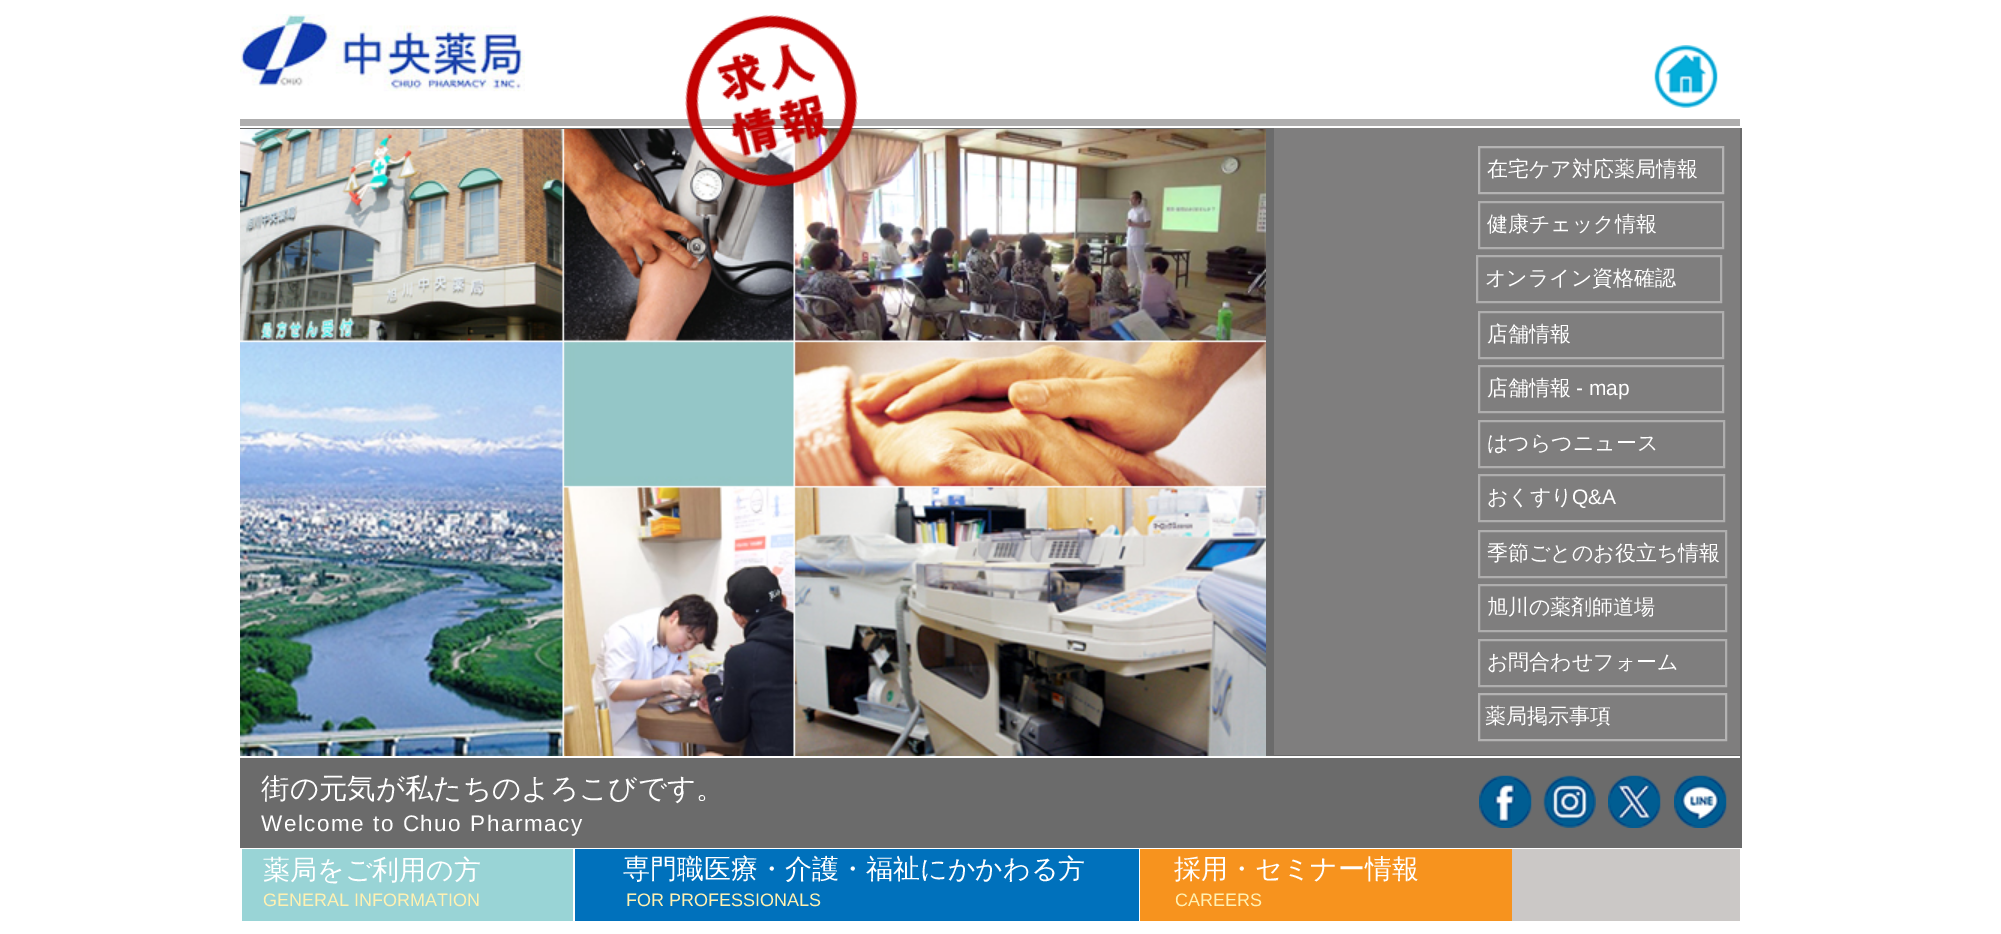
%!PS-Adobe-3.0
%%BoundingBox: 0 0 2001 934
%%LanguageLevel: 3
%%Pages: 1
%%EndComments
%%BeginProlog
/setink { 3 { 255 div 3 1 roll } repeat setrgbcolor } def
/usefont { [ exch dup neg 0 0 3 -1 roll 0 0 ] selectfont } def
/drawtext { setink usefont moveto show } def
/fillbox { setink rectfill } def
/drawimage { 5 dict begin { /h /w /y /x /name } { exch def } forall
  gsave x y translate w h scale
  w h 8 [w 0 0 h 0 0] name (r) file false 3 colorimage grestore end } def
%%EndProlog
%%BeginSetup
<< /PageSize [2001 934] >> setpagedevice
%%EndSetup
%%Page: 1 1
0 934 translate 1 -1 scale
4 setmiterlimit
0 0 2001 934 255 255 255 fillbox
(assets/img1.rgb) 240 14 285 78 drawimage
240 119 1500 7 175 174 174 fillbox
240 128 1502 720 107 107 107 fillbox
(assets/img4.rgb) 240 129 1026 627 drawimage
(assets/img2.rgb) 685 14 173 174 drawimage
(assets/img3.rgb) 1654 45 64 63 drawimage
1274 128 466 627 127 126 126 fillbox
180 179 179 setink
2 setlinewidth
1479 147 244 46 rectstroke
(在宅ケア対応薬局情報) 1487 176 /WenQuanYiZenHei-Medium 21 255 255 255 drawtext
175 174 174 setink
1479 202 244 46 rectstroke
(健康チェック情報) 1487 231 /WenQuanYiZenHei-Medium 21 255 255 255 drawtext
175 174 174 setink
1477 256 244 46 rectstroke
(オンライン資格確認) 1485 285 /WenQuanYiZenHei-Medium 21 255 255 255 drawtext
175 174 174 setink
1479 312 244 46 rectstroke
(店舗情報) 1487 341 /WenQuanYiZenHei-Medium 21 255 255 255 drawtext
175 174 174 setink
1479 366 244 46 rectstroke
(店舗情報) 1487 395 /WenQuanYiZenHei-Medium 21 255 255 255 drawtext
(- map) 1576 395 /LiberationSans-Regular 21 255 255 255 drawtext
175 174 174 setink
1479 421 245 46 rectstroke
(はつらつニュース) 1487 450 /WenQuanYiZenHei-Medium 21 255 255 255 drawtext
175 174 174 setink
1479 475 245 46 rectstroke
(おくすり) 1487 504 /WenQuanYiZenHei-Medium 21 255 255 255 drawtext
(Q&A) 1572 504 /LiberationSans-Regular 21 255 255 255 drawtext
175 174 174 setink
1479 531 247 46 rectstroke
(季節ごとのお役立ち情報) 1487 560 /WenQuanYiZenHei-Medium 21 255 255 255 drawtext
175 174 174 setink
1479 585 247 46 rectstroke
(旭川の薬剤師道場) 1487 614 /WenQuanYiZenHei-Medium 21 255 255 255 drawtext
175 174 174 setink
1479 640 247 46 rectstroke
(お問合わせフォーム) 1487 669 /WenQuanYiZenHei-Medium 21 255 255 255 drawtext
180 179 179 setink
1479 694 247 46 rectstroke
(薬局掲示事項) 1485 723 /WenQuanYiZenHei-Medium 21 255 255 255 drawtext
240 756 1500 2 255 255 255 fillbox
(街の元気が私たちのよろこびです。) 261 798 /WenQuanYiZenHei-Medium 28.5 255 255 255 drawtext
/LiberationSans-Regular 22.5 usefont
261 831 moveto 1.5 0 (Welcome to Chuo Pharmacy) ashow
(assets/img5.rgb) 1479 775 53 53 drawimage
(assets/img6.rgb) 1543 775 53 53 drawimage
(assets/img7.rgb) 1608 775 53 53 drawimage
(assets/img8.rgb) 1674 775 53 53 drawimage
242 849 331 72 153 212 214 fillbox
(薬局をご利用の方) 263 879 /WenQuanYiZenHei-Medium 27 255 255 255 drawtext
(GENERAL INFORMATION) 263 906 /LiberationSans-Regular 18 255 241 178 drawtext
575 849 564 72 0 113 188 fillbox
(専門職医療・介護・福祉にかかわる方) 623 878 /WenQuanYiZenHei-Medium 27 255 255 255 drawtext
(FOR PROFESSIONALS) 626 906 /LiberationSans-Regular 18 255 241 178 drawtext
1140 849 372 72 247 147 30 fillbox
(採用・セミナー情報) 1174 878 /WenQuanYiZenHei-Medium 27 255 255 255 drawtext
(CAREERS) 1175 906 /LiberationSans-Regular 18 255 241 178 drawtext
1512 849 228 72 203 200 198 fillbox
showpage
%%EOF
